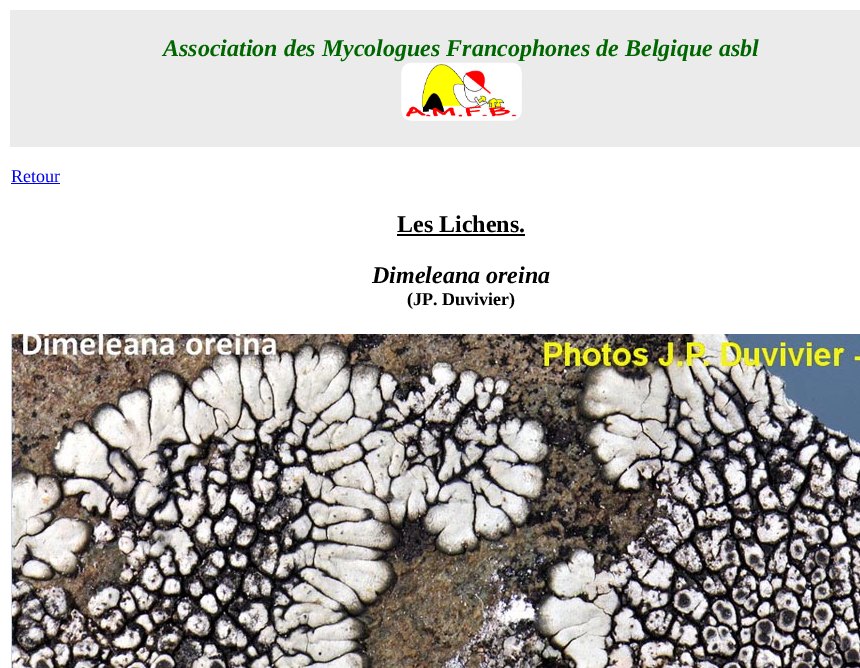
%!PS-Adobe-3.0
%%BoundingBox: 0 0 860 668
%%LanguageLevel: 3
%%Pages: 1
%%EndComments
%%BeginProlog
/setink { 3 { 255 div 3 1 roll } repeat setrgbcolor } def
/usefont { [ exch dup neg 0 0 3 -1 roll 0 0 ] selectfont } def
/drawtext { setink usefont moveto show } def
/fillbox { setink rectfill } def
/drawimage { 5 dict begin { /h /w /y /x /name } { exch def } forall
  gsave x y translate w h scale
  w h 8 [w 0 0 h 0 0] name (r) file false 3 colorimage grestore end } def
%%EndProlog
%%BeginSetup
<< /PageSize [860 668] >> setpagedevice
%%EndSetup
%%Page: 1 1
0 668 translate 1 -1 scale
4 setmiterlimit
0 0 860 668 255 255 255 fillbox
10 10 850 137 235 235 235 fillbox
(Association des Mycologues Francophones de Belgique asbl) 163 56 /LiberationSerif-BoldItalic 24 0 102 0 drawtext
(assets/img1.rgb) 401 62 121 59 drawimage
(Retour) 11 182 /LiberationSerif-Regular 18 0 0 238 drawtext
11 183 49 1 0 0 238 fillbox
(Les Lichens.) 397 232 /LiberationSerif-Bold 24 0 0 0 drawtext
397 234 128 2 0 0 0 fillbox
(Dimeleana oreina) 372 283 /LiberationSerif-BoldItalic 24 0 0 0 drawtext
(\(JP. Duvivier\)) 407 305 /LiberationSerif-Bold 18 0 0 0 drawtext
(assets/img2.rgb) 11 334 849 334 drawimage
showpage
%%EOF
